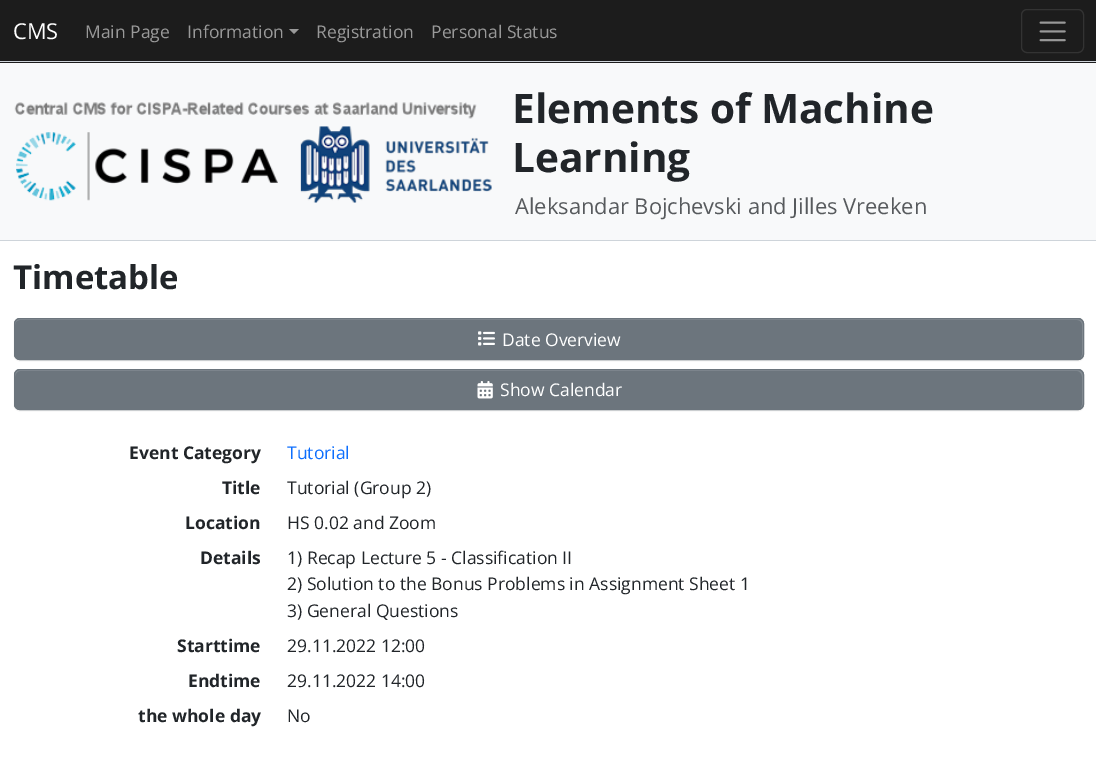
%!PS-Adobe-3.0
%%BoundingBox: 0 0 1096 769
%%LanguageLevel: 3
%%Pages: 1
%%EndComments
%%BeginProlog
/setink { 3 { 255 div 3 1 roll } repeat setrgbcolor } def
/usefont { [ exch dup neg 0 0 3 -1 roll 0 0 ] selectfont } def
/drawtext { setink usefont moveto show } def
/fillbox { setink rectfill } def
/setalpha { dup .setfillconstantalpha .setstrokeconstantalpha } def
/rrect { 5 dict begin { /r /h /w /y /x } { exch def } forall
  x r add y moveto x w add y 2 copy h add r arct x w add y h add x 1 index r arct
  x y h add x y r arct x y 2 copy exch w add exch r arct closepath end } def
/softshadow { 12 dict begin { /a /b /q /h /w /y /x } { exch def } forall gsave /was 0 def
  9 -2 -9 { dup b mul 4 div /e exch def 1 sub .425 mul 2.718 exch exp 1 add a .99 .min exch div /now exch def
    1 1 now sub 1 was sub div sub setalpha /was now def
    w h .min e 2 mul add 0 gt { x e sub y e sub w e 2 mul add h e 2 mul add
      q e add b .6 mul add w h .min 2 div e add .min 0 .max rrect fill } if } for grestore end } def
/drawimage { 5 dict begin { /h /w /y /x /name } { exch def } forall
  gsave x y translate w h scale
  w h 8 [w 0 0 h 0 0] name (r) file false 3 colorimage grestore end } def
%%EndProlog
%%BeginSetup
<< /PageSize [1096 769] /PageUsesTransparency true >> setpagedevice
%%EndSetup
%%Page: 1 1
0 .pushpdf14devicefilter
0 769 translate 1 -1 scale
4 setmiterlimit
0 0 1096 769 248 249 250 fillbox
0 0 1096 63 28 28 28 fillbox
0 61 1096 1 206 212 218 fillbox
(CMS) 13 39 /OpenSans-Regular 21.9 255 255 255 drawtext
(Main Page) 85 38 /OpenSans-Regular 17.5 153 153 153 drawtext
(Information) 187 38 /OpenSans-Regular 17.5 153 153 153 drawtext
289 29 moveto 299 29 lineto 294 34 lineto closepath fill
(Registration) 316 38 /OpenSans-Regular 17.5 153 153 153 drawtext
(Personal Status) 431 38 /OpenSans-Regular 17.5 153 153 153 drawtext
51 51 51 setink
1021.5 9.5 62 43 5.5 rrect stroke
(assets/img1.rgb) 1039 21 27 21 drawimage
0 240 1096 1 206 212 218 fillbox
(assets/img2.rgb) 14 102 478 101 drawimage
(Elements of Machine) 512 123 /OpenSans-Bold 40.5 33 37 41 drawtext
(Learning) 512 172 /OpenSans-Bold 40.5 33 37 41 drawtext
(Aleksandar Bojchevski and Jilles Vreeken) 515 214 /OpenSans-Regular 21.9 87 90 93 drawtext
0 241 1096 528 255 255 255 fillbox
(Timetable) 13 289 /OpenSans-Bold 33 33 37 41 drawtext
0 0 0 setink
14 319 1070 42 6 0.5 0.07 softshadow
108 117 125 setink
14 318 1070 42 6 rrect fill
130 138 145 setink
20 320 moveto 1077 320 lineto 1080 320 1082 322 1082 325 curveto 1082 355 lineto 1081 358 lineto 1082 357 1083 355 1083 354 curveto 1083 324 lineto 1083 321 1081 319 1078 319 curveto 20 319 lineto 17 319 15 321 15 324 curveto 15 325 lineto 15 322 17 320 20 320 curveto closepath fill
108 117 125 setink
14.5 318.5 1069 41 5.5 rrect stroke
(assets/img3.rgb) 478 331 17 15 drawimage
(Date Overview) 502 346 /OpenSans-Regular 17.5 255 255 255 drawtext
0 0 0 setink
14 370 1070 41 6 0.5 0.07 softshadow
108 117 125 setink
14 369 1070 41 6 rrect fill
130 138 145 setink
20 371 moveto 1077 371 lineto 1080 371 1082 374 1082 377 curveto 1082 405 lineto 1081 408 lineto 1082 407 1083 405 1083 404 curveto 1083 375 lineto 1083 372 1081 370 1078 370 curveto 20 370 lineto 17 370 15 372 15 375 curveto 15 377 lineto 15 374 17 371 20 371 curveto closepath fill
108 117 125 setink
14.5 369.5 1069 40 5.5 rrect stroke
(assets/img4.rgb) 477 381 16 18 drawimage
(Show Calendar) 500 396 /OpenSans-Regular 17.5 255 255 255 drawtext
(Event Category) 129 459 /OpenSans-Bold 17.5 33 37 41 drawtext
(Tutorial) 287 459 /OpenSans-Regular 17.5 13 110 253 drawtext
(Title) 222 494 /OpenSans-Bold 17.5 33 37 41 drawtext
(Tutorial \(Group 2\)) 287 494 /OpenSans-Regular 17.5 33 37 41 drawtext
(Location) 185 529 /OpenSans-Bold 17.5 33 37 41 drawtext
(HS 0.02 and Zoom) 287 529 /OpenSans-Regular 17.5 33 37 41 drawtext
(Details) 200 564 /OpenSans-Bold 17.5 33 37 41 drawtext
(1\) Recap Lecture 5 - Classification II) 287 564 /OpenSans-Regular 17.5 33 37 41 drawtext
(2\) Solution to the Bonus Problems in Assignment Sheet 1) 287 590 /OpenSans-Regular 17.5 33 37 41 drawtext
(3\) General Questions) 287 617 /OpenSans-Regular 17.5 33 37 41 drawtext
(Starttime) 177 652 /OpenSans-Bold 17.5 33 37 41 drawtext
(29.11.2022 12:00) 287 652 /OpenSans-Regular 17.5 33 37 41 drawtext
(Endtime) 188 687 /OpenSans-Bold 17.5 33 37 41 drawtext
(29.11.2022 14:00) 287 687 /OpenSans-Regular 17.5 33 37 41 drawtext
(the whole day) 138 722 /OpenSans-Bold 17.5 33 37 41 drawtext
(No) 287 722 /OpenSans-Regular 17.5 33 37 41 drawtext
.poppdf14devicefilter showpage
%%EOF
